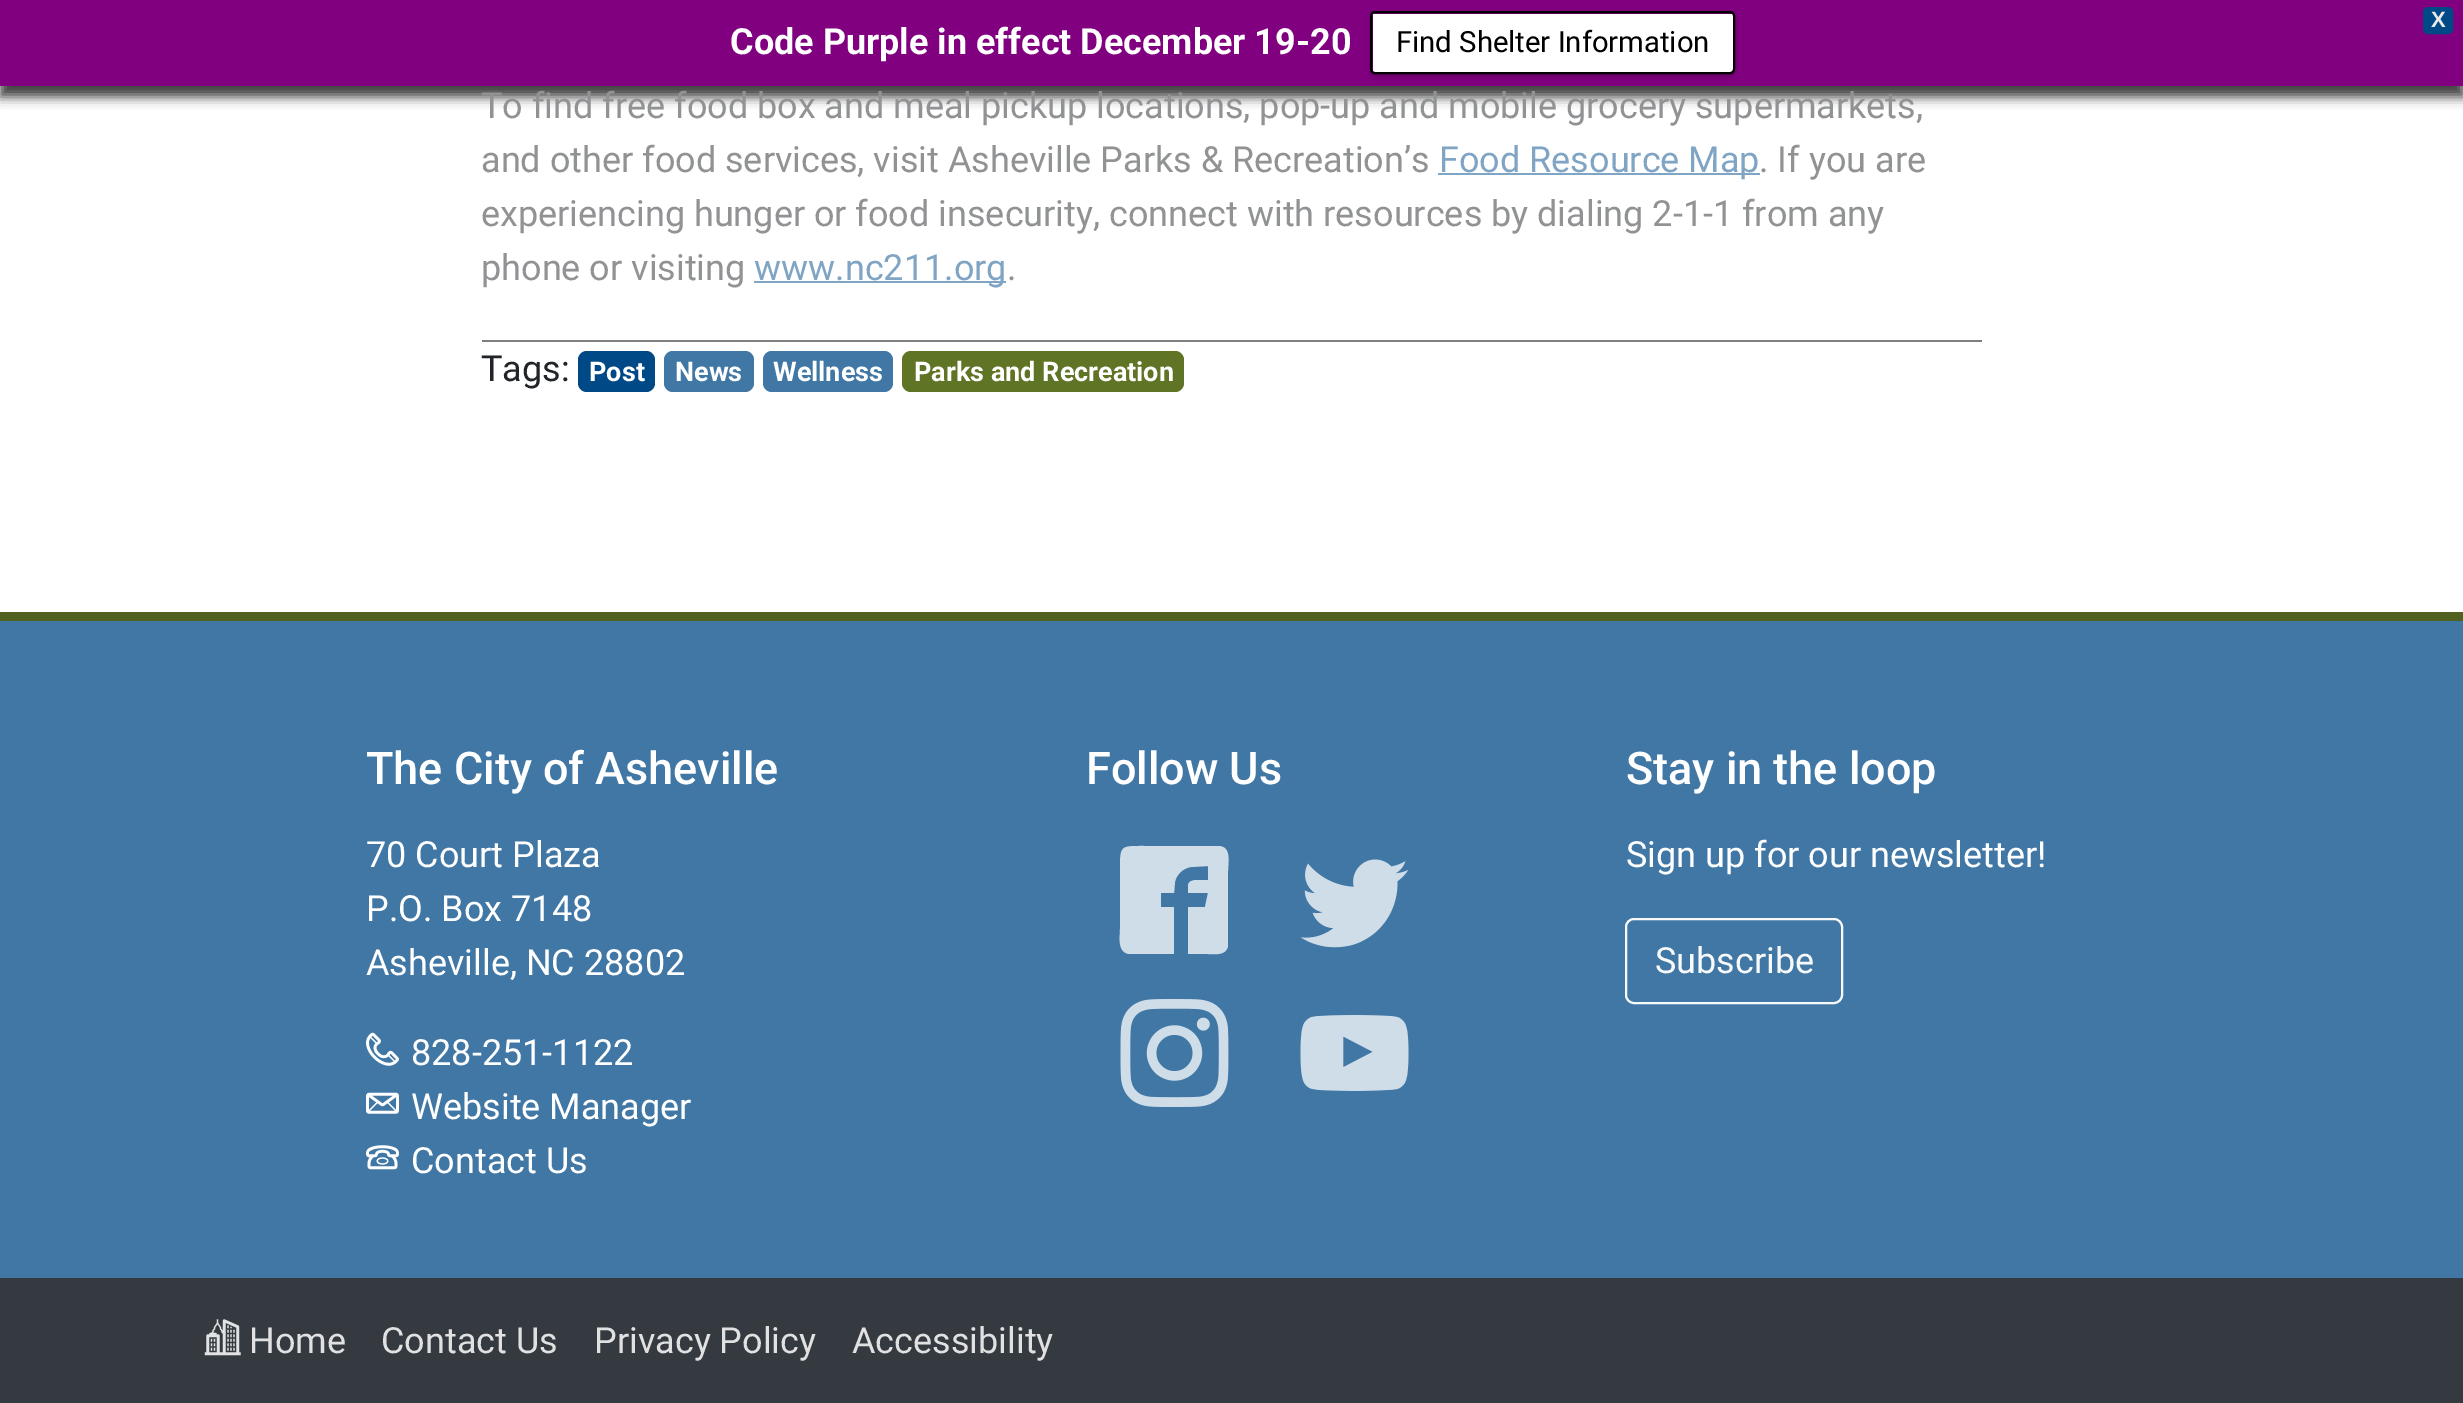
%!PS-Adobe-3.0
%%BoundingBox: 0 0 2463 1403
%%LanguageLevel: 3
%%Pages: 1
%%EndComments
%%BeginProlog
/setink { 3 { 255 div 3 1 roll } repeat setrgbcolor } def
/usefont { [ exch dup neg 0 0 3 -1 roll 0 0 ] selectfont } def
/drawtext { setink usefont moveto show } def
/fillbox { setink rectfill } def
/setalpha { dup .setfillconstantalpha .setstrokeconstantalpha } def
/rrect { 5 dict begin { /r /h /w /y /x } { exch def } forall
  x r add y moveto x w add y 2 copy h add r arct x w add y h add x 1 index r arct
  x y h add x y r arct x y 2 copy exch w add exch r arct closepath end } def
/softshadow { 12 dict begin { /a /b /q /h /w /y /x } { exch def } forall gsave /was 0 def
  9 -2 -9 { dup b mul 4 div /e exch def 1 sub .425 mul 2.718 exch exp 1 add a .99 .min exch div /now exch def
    1 1 now sub 1 was sub div sub setalpha /was now def
    w h .min e 2 mul add 0 gt { x e sub y e sub w e 2 mul add h e 2 mul add
      q e add b .6 mul add w h .min 2 div e add .min 0 .max rrect fill } if } for grestore end } def
/drawimage { 5 dict begin { /h /w /y /x /name } { exch def } forall
  gsave x y translate w h scale
  w h 8 [w 0 0 h 0 0] name (r) file false 3 colorimage grestore end } def
%%EndProlog
%%BeginSetup
<< /PageSize [2463 1403] /PageUsesTransparency true >> setpagedevice
%%EndSetup
%%Page: 1 1
0 .pushpdf14devicefilter
0 1403 translate 1 -1 scale
4 setmiterlimit
0 0 2463 1403 255 255 255 fillbox
0 0 0 setink
0 11 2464 86 0 5.5 0.75 softshadow
0 0 2463 86 128 0 128 fillbox
0 73 135 setink
2424 8 28 25 4 rrect gsave fill grestore
2 setlinewidth
stroke
(X) 2431 27 /LiberationSans-Bold 22 235 235 235 drawtext
(Code Purple in effect December 19-20) 730 54 /Roboto-Bold 36 255 255 255 drawtext
0 0 0 setink
1370 14 365 63 5 2 0.2 softshadow
1373 14 360 58 255 255 255 fillbox
0 0 0 setink
1371 12 363 61 4 rrect stroke
(Find Shelter Information) 1396 52 /Roboto-Regular 29.25 0 0 0 drawtext
(To find free food box and meal pickup locations, pop-up and mobile grocery supermarkets,) 481 118 /Roboto-Regular 36 144 146 148 drawtext
(and other food services, visit Asheville Parks & Recreation’s) 481 172 /Roboto-Regular 36 144 146 148 drawtext
1438 173 322 2 128 164 195 fillbox
(Food Resource Map) 1439 172 /Roboto-Regular 36 128 164 195 drawtext
(. If you are) 1759 172 /Roboto-Regular 36 144 146 148 drawtext
(experiencing hunger or food insecurity, connect with resources by dialing 2-1-1 from any) 481 226 /Roboto-Regular 36 144 146 148 drawtext
(phone or visiting) 481 280 /Roboto-Regular 36 144 146 148 drawtext
754 281 252 2 128 164 195 fillbox
(www.nc211.org) 754 280 /Roboto-Regular 36 128 164 195 drawtext
(.) 1007 280 /Roboto-Regular 36 144 146 148 drawtext
482 340 1500 2 128 128 128 fillbox
(Tags:) 481 381 /Roboto-Regular 36 33 37 41 drawtext
0 73 135 setink
578 351 77 41 9 rrect fill
(Post) 589 381 /Roboto-Bold 27 255 255 255 drawtext
64 119 165 setink
664 351 90 41 9 rrect fill
(News) 675 381 /Roboto-Bold 27 255 255 255 drawtext
64 119 165 setink
763 351 130 41 9 rrect fill
(Wellness) 773 381 /Roboto-Bold 27 255 255 255 drawtext
96 116 37 setink
902 351 282 41 9 rrect fill
(Parks and Recreation) 914 381 /Roboto-Bold 27 255 255 255 drawtext
0 621 2463 657 64 119 165 fillbox
0 612 2463 9 80 96 31 fillbox
(The City of Asheville) 366 784 /Roboto-Medium 45 255 255 255 drawtext
(70 Court Plaza) 366 867 /Roboto-Regular 36 255 255 255 drawtext
(P.O. Box 7148) 366 921 /Roboto-Regular 36 255 255 255 drawtext
(Asheville, NC 28802) 366 975 /Roboto-Regular 36 255 255 255 drawtext
(assets/img1.rgb) 366 1032 33 34 drawimage
(828-251-1122) 411 1065 /Roboto-Regular 36 255 255 255 drawtext
(assets/img2.rgb) 366 1092 33 22 drawimage
(Website Manager) 411 1119 /Roboto-Regular 36 255 255 255 drawtext
(assets/img3.rgb) 366 1145 33 25 drawimage
(Contact Us) 411 1173 /Roboto-Regular 36 255 255 255 drawtext
(Follow Us) 1086 784 /Roboto-Medium 45 255 255 255 drawtext
207 221 233 setink
1218 846 moveto 1145 846 lineto 1120 846 1120 845 1120 871 curveto 1120 929 lineto 1120 937 1117 952 1129 954 curveto 1174 954 lineto 1174 907 lineto 1161 907 lineto 1161 893 lineto 1174 893 lineto 1175 882 lineto 1176 875 1183 868 1191 867 curveto 1208 866 lineto 1208 880 lineto 1199 880 lineto 1195 880 1189 880 1188 885 curveto 1188 893 lineto 1208 893 lineto 1205 907 lineto 1188 907 lineto 1188 954 lineto 1208 954 lineto 1215 954 1226 956 1228 946 curveto 1228 871 lineto 1228 863 1232 846 1218 846 curveto closepath fill
(assets/img4.rgb) 1300 859 109 89 drawimage
(assets/img5.rgb) 1120 999 109 108 drawimage
(assets/img6.rgb) 1300 1015 109 76 drawimage
(Stay in the loop) 1626 784 /Roboto-Medium 45 255 255 255 drawtext
(Sign up for our newsletter!) 1626 867 /Roboto-Regular 36 255 255 255 drawtext
248 249 250 setink
1626 919 216 84 8 rrect stroke
(Subscribe) 1655 973 /Roboto-Regular 36 248 249 250 drawtext
0 1278 2463 125 52 58 64 fillbox
(assets/img7.rgb) 204 1319 37 37 drawimage
(Home) 249 1353 /Roboto-Regular 36 225 225 226 drawtext
(Contact Us) 381 1353 /Roboto-Regular 36 225 225 226 drawtext
(Privacy Policy) 594 1353 /Roboto-Regular 36 225 225 226 drawtext
(Accessibility) 852 1353 /Roboto-Regular 36 225 225 226 drawtext
.poppdf14devicefilter showpage
%%EOF
